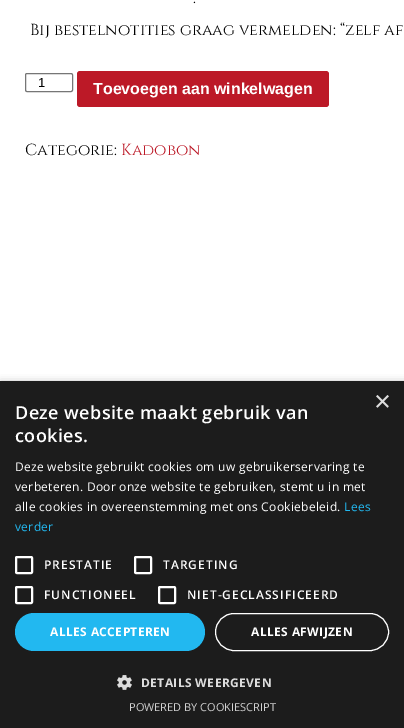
%!PS-Adobe-3.0
%%BoundingBox: 0 0 404 728
%%LanguageLevel: 3
%%Pages: 1
%%EndComments
%%BeginProlog
/setink { 3 { 255 div 3 1 roll } repeat setrgbcolor } def
/usefont { [ exch dup neg 0 0 3 -1 roll 0 0 ] selectfont } def
/drawtext { setink usefont moveto show } def
/fillbox { setink rectfill } def
/setalpha { dup .setfillconstantalpha .setstrokeconstantalpha } def
/rrect { 5 dict begin { /r /h /w /y /x } { exch def } forall
  x r add y moveto x w add y 2 copy h add r arct x w add y h add x 1 index r arct
  x y h add x y r arct x y 2 copy exch w add exch r arct closepath end } def
/softshadow { 12 dict begin { /a /b /q /h /w /y /x } { exch def } forall gsave /was 0 def
  9 -2 -9 { dup b mul 4 div /e exch def 1 sub .425 mul 2.718 exch exp 1 add a .99 .min exch div /now exch def
    1 1 now sub 1 was sub div sub setalpha /was now def
    w h .min e 2 mul add 0 gt { x e sub y e sub w e 2 mul add h e 2 mul add
      q e add b .6 mul add w h .min 2 div e add .min 0 .max rrect fill } if } for grestore end } def
/drawimage { 5 dict begin { /h /w /y /x /name } { exch def } forall
  gsave x y translate w h scale
  w h 8 [w 0 0 h 0 0] name (r) file false 3 colorimage grestore end } def
%%EndProlog
%%BeginSetup
<< /PageSize [404 728] /PageUsesTransparency true >> setpagedevice
%%EndSetup
%%Page: 1 1
0 .pushpdf14devicefilter
0 728 translate 1 -1 scale
4 setmiterlimit
0 0 404 728 255 255 255 fillbox
(.) 193 3 /Cinzel-Regular 16 0 0 0 drawtext
(Bij bestelnotities graag vermelden: “zelf af) 30 35 /Cinzel-Regular 16 0 0 0 drawtext
118 118 118 setink
25.5 73.5 47 18 1.5 rrect stroke
(1) 38 87 /LiberationSans-Regular 13 0 0 0 drawtext
188 25 39 setink
77 71 252 36 3 rrect fill
(Toevoegen aan winkelwagen) 93 94 /LiberationSans-Bold 16 255 255 255 drawtext
(Categorie:) 25 155 /Cinzel-Regular 16 0 0 0 drawtext
(Kadobon) 121 155 /Cinzel-Regular 16 188 25 39 drawtext
0 0 0 setink
1 383 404 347 0 4 0.35 softshadow
0 381 404 347 28 28 28 fillbox
(×) 374 411 /LiberationSans-Regular 29 221 221 221 drawtext
/OpenSans-SemiBold 18 usefont
255 255 255 setink
15 419 moveto 0.4 0 (Deze website maakt gebruik van) ashow
15 442 moveto 0.4 0 (cookies.) ashow
/OpenSans-Regular 12 usefont
15 471 moveto 0.3 0 (Deze website gebruikt cookies om uw gebruikerservaring te) ashow
15 491 moveto 0.3 0 (verbeteren. Door onze website te gebruiken, stemt u in met) ashow
15 511 moveto 0.3 0 (alle cookies in overeenstemming met ons Cookiebeleid.) ashow
34 184 240 setink
344 511 moveto 0.3 0 (Lees) ashow
15 531 moveto 0.3 0 (verder) ashow
255 255 255 setink
2 setlinewidth
16 557 16 16 1 rrect stroke
/OpenSans-SemiBold 12 usefont
44 569 moveto 1 0 (PRESTATIE) ashow
135 557 16 16 1 rrect stroke
163 569 moveto 1 0 (TARGETING) ashow
16 587 16 16 1 rrect stroke
44 599 moveto 1 0 (FUNCTIONEEL) ashow
159 587 16 16 1 rrect stroke
187 599 moveto 1 0 (NIET-GECLASSIFICEERD) ashow
34 184 240 setink
15 613 190 38 19 rrect fill
/OpenSans-Bold 12 usefont
255 255 255 setink
50 636 moveto 0.4 0 (ALLES ACCEPTEREN) ashow
1 setlinewidth
215.5 613.5 173 37 18.5 rrect stroke
251 636 moveto 0.4 0 (ALLES AFWIJZEN) ashow
(assets/img1.rgb) 117 675 15 15 drawimage
221 221 221 setink
141 687 moveto 0.4 0 (DETAILS WEERGEVEN) ashow
(POWERED BY COOKIESCRIPT) 129 711 /OpenSans-Regular 11 210 210 210 drawtext
.poppdf14devicefilter showpage
%%EOF
